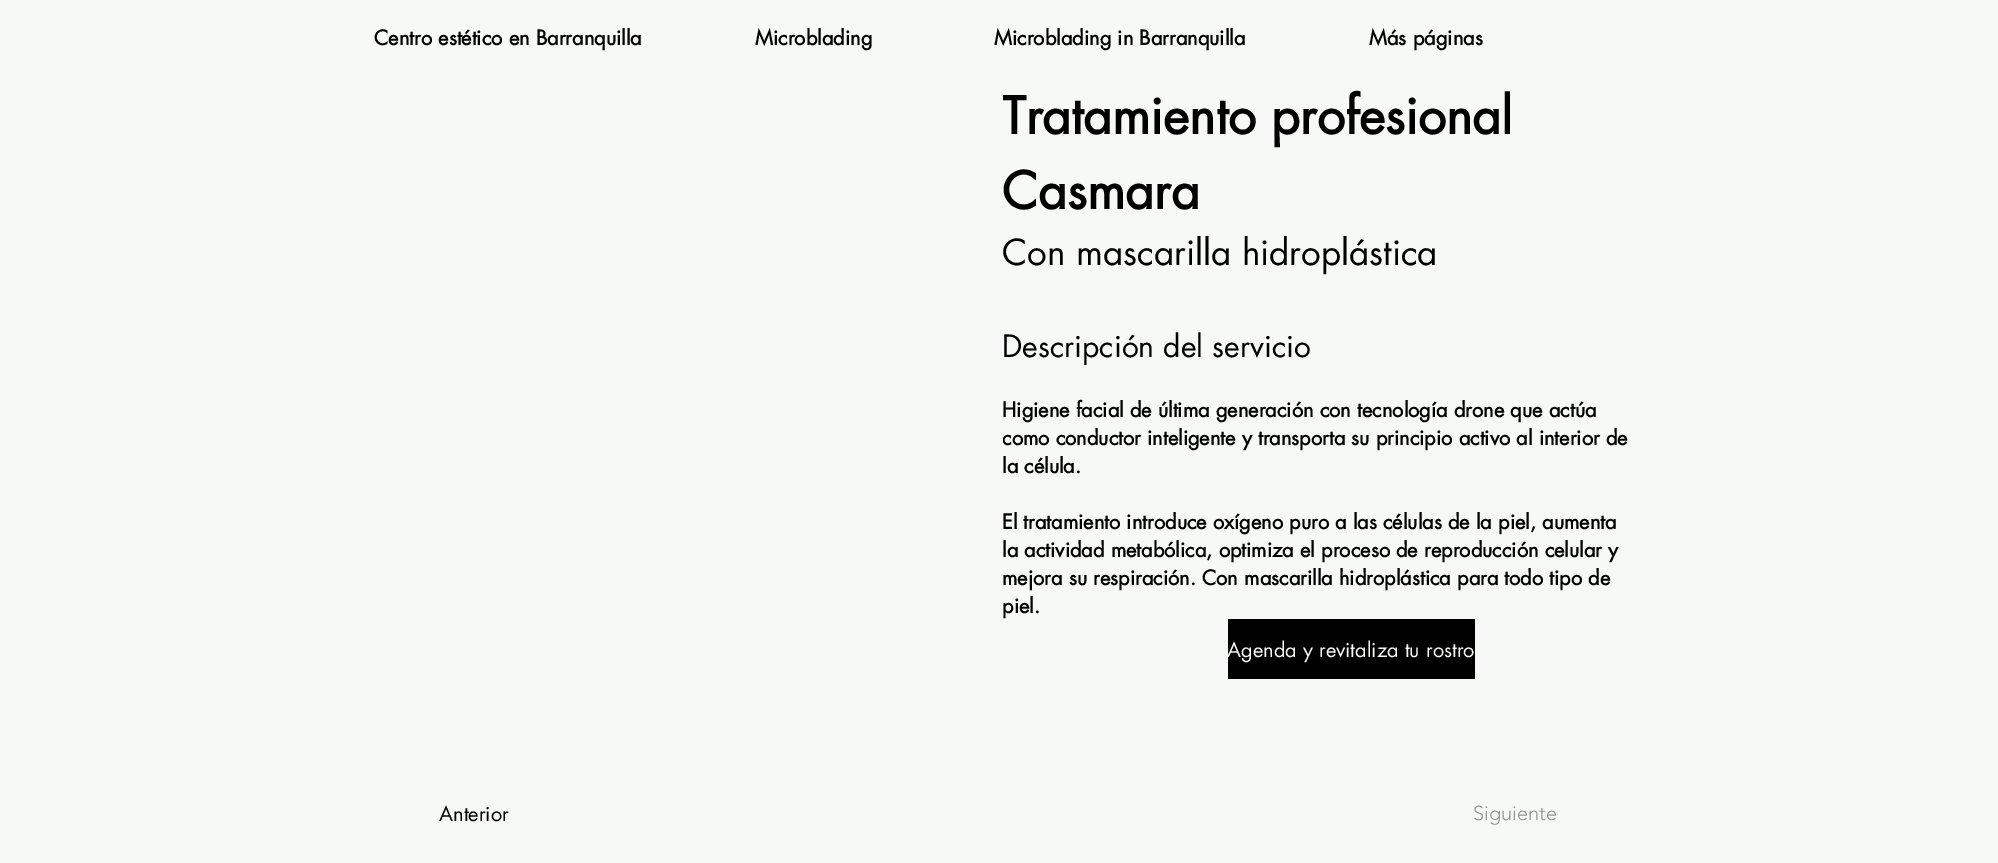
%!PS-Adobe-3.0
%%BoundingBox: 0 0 1998 863
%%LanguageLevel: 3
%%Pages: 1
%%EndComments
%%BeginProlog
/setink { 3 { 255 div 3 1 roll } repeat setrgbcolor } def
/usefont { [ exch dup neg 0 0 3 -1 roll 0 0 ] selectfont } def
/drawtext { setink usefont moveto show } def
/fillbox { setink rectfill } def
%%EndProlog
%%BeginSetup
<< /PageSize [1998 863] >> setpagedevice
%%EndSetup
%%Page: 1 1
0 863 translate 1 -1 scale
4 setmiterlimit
0 0 1998 863 246 249 245 fillbox
(Centro estético en Barranquilla) 374 45 /futura-Bold 20 0 0 0 drawtext
(Microblading) 755 45 /futura-Bold 20 0 0 0 drawtext
(Microblading in Barranquilla) 994 45 /futura-Bold 20 0 0 0 drawtext
(Más páginas) 1369 45 /futura-Bold 20 0 0 0 drawtext
gsave
1003 78 631 541 rectclip
(Tratamiento profesional) 1002 134 /futura-Bold 50 0 0 0 drawtext
grestore
(Casmara) 1002 209 /futura-Bold 50 0 0 0 drawtext
(Con mascarilla hidroplástica) 1002 265 /futura-Regular 35 0 0 0 drawtext
(Descripción del servicio) 1002 357 /futura-Regular 30 0 0 0 drawtext
(Higiene facial de última generación con tecnología drone que actúa) 1002 417 /futura-Bold 20 0 0 0 drawtext
gsave
1003 78 631 541 rectclip
(como conductor inteligente y transporta su principio activo al interior de) 1002 445 /futura-Bold 20 0 0 0 drawtext
grestore
(la célula.) 1002 473 /futura-Bold 20 0 0 0 drawtext
(El tratamiento introduce oxígeno puro a las células de la piel, aumenta) 1002 529 /futura-Bold 20 0 0 0 drawtext
(la actividad metabólica, optimiza el proceso de reproducción celular y) 1002 557 /futura-Bold 20 0 0 0 drawtext
(mejora su respiración. Con mascarilla hidroplástica para todo tipo de) 1002 585 /futura-Bold 20 0 0 0 drawtext
(piel.) 1002 613 /futura-Bold 20 0 0 0 drawtext
1228 619 247 60 0 0 0 fillbox
(Agenda y revitaliza tu rostro) 1227 657 /futura-Regular 20 246 249 245 drawtext
(Anterior) 439 821 /futura-Regular 20 0 0 0 drawtext
(Siguiente) 1473 820 /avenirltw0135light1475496-Light 20 148 149 147 drawtext
showpage
%%EOF
